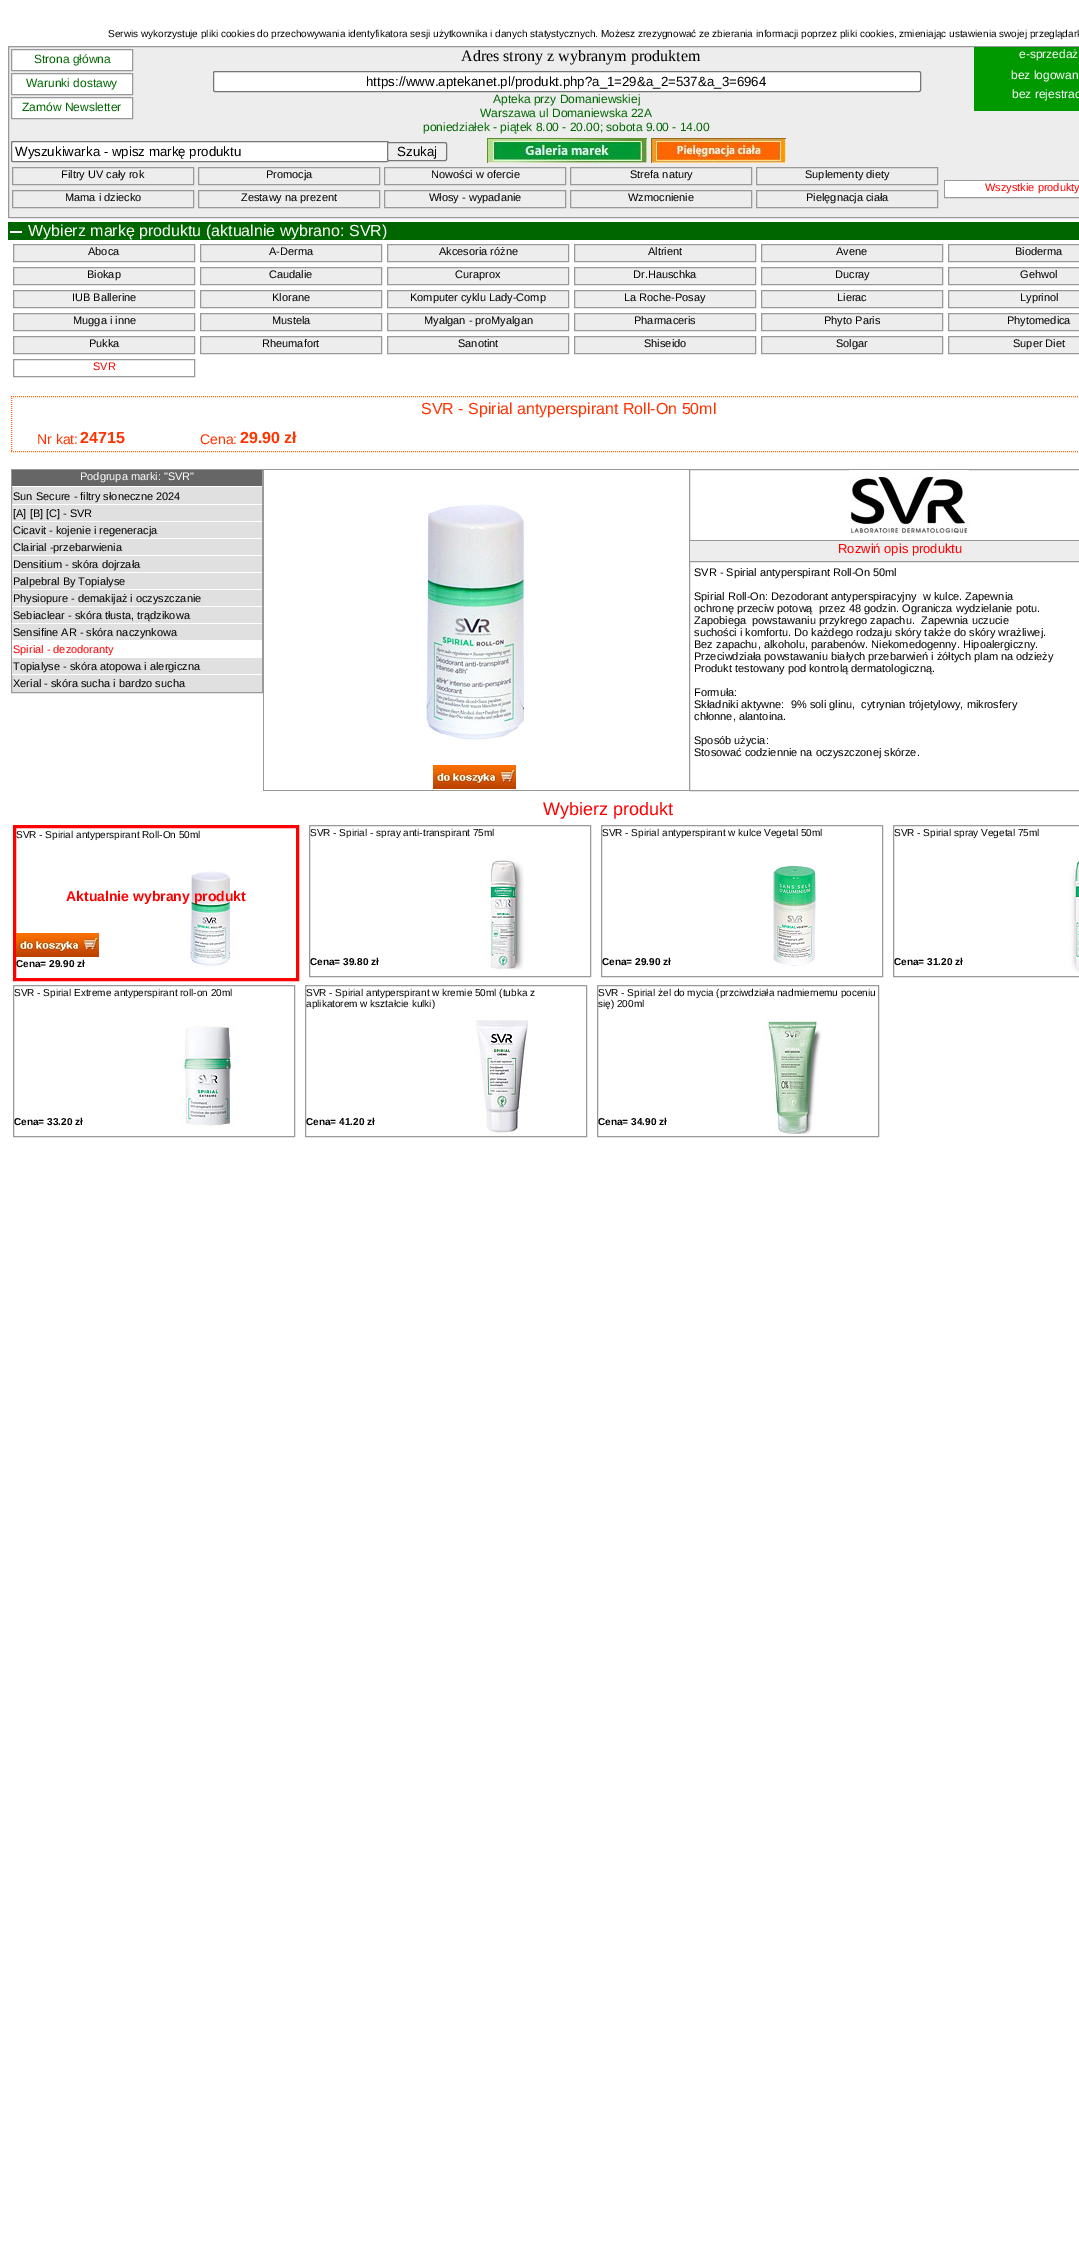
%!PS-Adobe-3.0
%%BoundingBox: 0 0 1079 2244
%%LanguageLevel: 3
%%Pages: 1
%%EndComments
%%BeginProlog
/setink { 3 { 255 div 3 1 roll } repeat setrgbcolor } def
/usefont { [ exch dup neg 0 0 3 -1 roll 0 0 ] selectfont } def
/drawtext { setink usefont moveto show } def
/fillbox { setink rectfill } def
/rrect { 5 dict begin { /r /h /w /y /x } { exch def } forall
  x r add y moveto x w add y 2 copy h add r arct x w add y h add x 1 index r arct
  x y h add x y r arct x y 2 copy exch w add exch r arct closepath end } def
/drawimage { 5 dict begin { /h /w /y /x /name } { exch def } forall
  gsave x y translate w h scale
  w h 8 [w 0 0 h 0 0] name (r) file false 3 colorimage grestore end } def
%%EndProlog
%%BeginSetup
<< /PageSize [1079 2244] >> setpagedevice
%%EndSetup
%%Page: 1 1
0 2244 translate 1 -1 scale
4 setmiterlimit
0 0 1079 2244 255 255 255 fillbox
(Serwis wykorzystuje pliki cookies do przechowywania identyfikatora sesji użytkownika i danych statystycznych. Możesz zrezygnować ze zbierania informacji poprzez pliki cookies, zmieniając ustawienia swojej przeglądark) 108 37 /LiberationSans-Regular 10 0 0 0 drawtext
237 237 237 setink
8.5 46.5 moveto 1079.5 46.5 lineto 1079.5 217.5 lineto 8.5 217.5 lineto closepath gsave fill grestore
153 153 153 setink
stroke
255 255 255 setink
11.5 49.5 moveto 132.5 49.5 lineto 132.5 70.5 lineto 11.5 70.5 lineto closepath gsave fill grestore
153 153 153 setink
stroke
(Strona główna) 34 63 /LiberationSans-Regular 12 0 102 0 drawtext
(Adres strony z wybranym produktem) 461 61 /LiberationSerif-Regular 16 0 0 0 drawtext
974 47 105 21 0 153 0 fillbox
(e-sprzedaż) 1019 58 /LiberationSans-Regular 12 255 255 255 drawtext
974 68 105 43 0 153 0 fillbox
(bez logowan) 1011 79 /LiberationSans-Regular 12 255 255 255 drawtext
11.5 73.5 moveto 132.5 73.5 lineto 132.5 94.5 lineto 11.5 94.5 lineto closepath gsave fill grestore
153 153 153 setink
stroke
(Warunki dostawy) 26 87 /LiberationSans-Regular 12 0 102 0 drawtext
255 255 255 setink
11.5 97.5 moveto 132.5 97.5 lineto 132.5 118.5 lineto 11.5 118.5 lineto closepath gsave fill grestore
153 153 153 setink
stroke
(Zamów Newsletter) 22 111 /LiberationSans-Regular 12 0 102 0 drawtext
255 255 255 setink
213.5 71.5 707 20 1.5 rrect gsave fill grestore
118 118 118 setink
stroke
(https://www.aptekanet.pl/produkt.php?a_1=29&a_2=537&a_3=6964) 366 86 /LiberationSans-Regular 13.3 0 0 0 drawtext
(Apteka przy Domaniewskiej) 493 103 /LiberationSans-Regular 12 0 102 0 drawtext
(bez rejestrac) 1012 98 /LiberationSans-Regular 12 255 255 255 drawtext
(Warszawa ul Domaniewska 22A) 480 117 /LiberationSans-Regular 12 0 102 0 drawtext
(poniedziałek - piątek 8.00 - 20.00; sobota 9.00 - 14.00) 423 131 /LiberationSans-Regular 12 0 102 0 drawtext
255 255 255 setink
11.5 141.5 377 20 1.5 rrect gsave fill grestore
118 118 118 setink
stroke
(Wyszukiwarka - wpisz markę produktu) 15 156 /LiberationSans-Regular 13.3 0 0 0 drawtext
239 239 239 setink
387.5 142.5 59 18 1.5 rrect gsave fill grestore
118 118 118 setink
stroke
(Szukaj) 397 156 /LiberationSans-Regular 13.3 0 0 0 drawtext
(assets/img1.rgb) 487 138 160 25 drawimage
(assets/img2.rgb) 651 138 135 25 drawimage
153 153 153 setink
12.5 167.5 181 17 rectstroke
(Filtry UV cały rok) 61 178 /LiberationSans-Regular 11 0 0 0 drawtext
153 153 153 setink
198.5 167.5 181 17 rectstroke
(Promocja) 266 178 /LiberationSans-Regular 11 0 0 0 drawtext
153 153 153 setink
384.5 167.5 181 17 rectstroke
(Nowości w ofercie) 431 178 /LiberationSans-Regular 11 0 0 0 drawtext
153 153 153 setink
570.5 167.5 181 17 rectstroke
(Strefa natury) 630 178 /LiberationSans-Regular 11 0 0 0 drawtext
153 153 153 setink
756.5 167.5 181 17 rectstroke
(Suplementy diety) 805 178 /LiberationSans-Regular 11 0 0 0 drawtext
153 153 153 setink
944.5 180.5 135 17 rectstroke
945 181 134 16 255 255 255 fillbox
(Wszystkie produkty) 985 191 /LiberationSans-Regular 11 255 0 0 drawtext
153 153 153 setink
12.5 190.5 181 17 rectstroke
(Mama i dziecko) 65 201 /LiberationSans-Regular 11 0 0 0 drawtext
153 153 153 setink
198.5 190.5 181 17 rectstroke
(Zestawy na prezent) 241 201 /LiberationSans-Regular 11 0 0 0 drawtext
153 153 153 setink
384.5 190.5 181 17 rectstroke
(Włosy - wypadanie) 429 201 /LiberationSans-Regular 11 0 0 0 drawtext
153 153 153 setink
570.5 190.5 181 17 rectstroke
(Wzmocnienie) 628 201 /LiberationSans-Regular 11 0 0 0 drawtext
153 153 153 setink
756.5 190.5 181 17 rectstroke
(Pielęgnacja ciała) 806 201 /LiberationSans-Regular 11 0 0 0 drawtext
8 222 1071 18 0 102 0 fillbox
10 231 12 2 255 255 255 fillbox
(Wybierz markę produktu \(aktualnie wybrano: SVR\)) 28 236 /LiberationSans-Regular 16 255 255 255 drawtext
237 237 237 setink
13.5 244.5 moveto 194.5 244.5 lineto 194.5 261.5 lineto 13.5 261.5 lineto closepath gsave fill grestore
153 153 153 setink
stroke
(Aboca) 88 255 /LiberationSans-Regular 11 0 0 0 drawtext
237 237 237 setink
200.5 244.5 moveto 381.5 244.5 lineto 381.5 261.5 lineto 200.5 261.5 lineto closepath gsave fill grestore
153 153 153 setink
stroke
(A-Derma) 269 255 /LiberationSans-Regular 11 0 0 0 drawtext
237 237 237 setink
387.5 244.5 moveto 568.5 244.5 lineto 568.5 261.5 lineto 387.5 261.5 lineto closepath gsave fill grestore
153 153 153 setink
stroke
(Akcesoria różne) 439 255 /LiberationSans-Regular 11 0 0 0 drawtext
237 237 237 setink
574.5 244.5 moveto 755.5 244.5 lineto 755.5 261.5 lineto 574.5 261.5 lineto closepath gsave fill grestore
153 153 153 setink
stroke
(Altrient) 648 255 /LiberationSans-Regular 11 0 0 0 drawtext
237 237 237 setink
761.5 244.5 moveto 942.5 244.5 lineto 942.5 261.5 lineto 761.5 261.5 lineto closepath gsave fill grestore
153 153 153 setink
stroke
(Avene) 836 255 /LiberationSans-Regular 11 0 0 0 drawtext
237 237 237 setink
948.5 244.5 moveto 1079.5 244.5 lineto 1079.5 261.5 lineto 948.5 261.5 lineto closepath gsave fill grestore
153 153 153 setink
stroke
(Bioderma) 1015 255 /LiberationSans-Regular 11 0 0 0 drawtext
237 237 237 setink
13.5 267.5 moveto 194.5 267.5 lineto 194.5 284.5 lineto 13.5 284.5 lineto closepath gsave fill grestore
153 153 153 setink
stroke
(Biokap) 87 278 /LiberationSans-Regular 11 0 0 0 drawtext
237 237 237 setink
200.5 267.5 moveto 381.5 267.5 lineto 381.5 284.5 lineto 200.5 284.5 lineto closepath gsave fill grestore
153 153 153 setink
stroke
(Caudalie) 269 278 /LiberationSans-Regular 11 0 0 0 drawtext
237 237 237 setink
387.5 267.5 moveto 568.5 267.5 lineto 568.5 284.5 lineto 387.5 284.5 lineto closepath gsave fill grestore
153 153 153 setink
stroke
(Curaprox) 455 278 /LiberationSans-Regular 11 0 0 0 drawtext
237 237 237 setink
574.5 267.5 moveto 755.5 267.5 lineto 755.5 284.5 lineto 574.5 284.5 lineto closepath gsave fill grestore
153 153 153 setink
stroke
(Dr.Hauschka) 633 278 /LiberationSans-Regular 11 0 0 0 drawtext
237 237 237 setink
761.5 267.5 moveto 942.5 267.5 lineto 942.5 284.5 lineto 761.5 284.5 lineto closepath gsave fill grestore
153 153 153 setink
stroke
(Ducray) 835 278 /LiberationSans-Regular 11 0 0 0 drawtext
237 237 237 setink
948.5 267.5 moveto 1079.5 267.5 lineto 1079.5 284.5 lineto 948.5 284.5 lineto closepath gsave fill grestore
153 153 153 setink
stroke
(Gehwol) 1020 278 /LiberationSans-Regular 11 0 0 0 drawtext
237 237 237 setink
13.5 290.5 moveto 194.5 290.5 lineto 194.5 307.5 lineto 13.5 307.5 lineto closepath gsave fill grestore
153 153 153 setink
stroke
(IUB Ballerine) 72 301 /LiberationSans-Regular 11 0 0 0 drawtext
237 237 237 setink
200.5 290.5 moveto 381.5 290.5 lineto 381.5 307.5 lineto 200.5 307.5 lineto closepath gsave fill grestore
153 153 153 setink
stroke
(Klorane) 272 301 /LiberationSans-Regular 11 0 0 0 drawtext
237 237 237 setink
387.5 290.5 moveto 568.5 290.5 lineto 568.5 307.5 lineto 387.5 307.5 lineto closepath gsave fill grestore
153 153 153 setink
stroke
(Komputer cyklu Lady-Comp) 410 301 /LiberationSans-Regular 11 0 0 0 drawtext
237 237 237 setink
574.5 290.5 moveto 755.5 290.5 lineto 755.5 307.5 lineto 574.5 307.5 lineto closepath gsave fill grestore
153 153 153 setink
stroke
(La Roche-Posay) 624 301 /LiberationSans-Regular 11 0 0 0 drawtext
237 237 237 setink
761.5 290.5 moveto 942.5 290.5 lineto 942.5 307.5 lineto 761.5 307.5 lineto closepath gsave fill grestore
153 153 153 setink
stroke
(Lierac) 837 301 /LiberationSans-Regular 11 0 0 0 drawtext
237 237 237 setink
948.5 290.5 moveto 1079.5 290.5 lineto 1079.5 307.5 lineto 948.5 307.5 lineto closepath gsave fill grestore
153 153 153 setink
stroke
(Lyprinol) 1020 301 /LiberationSans-Regular 11 0 0 0 drawtext
237 237 237 setink
13.5 313.5 moveto 194.5 313.5 lineto 194.5 330.5 lineto 13.5 330.5 lineto closepath gsave fill grestore
153 153 153 setink
stroke
(Mugga i inne) 73 324 /LiberationSans-Regular 11 0 0 0 drawtext
237 237 237 setink
200.5 313.5 moveto 381.5 313.5 lineto 381.5 330.5 lineto 200.5 330.5 lineto closepath gsave fill grestore
153 153 153 setink
stroke
(Mustela) 272 324 /LiberationSans-Regular 11 0 0 0 drawtext
237 237 237 setink
387.5 313.5 moveto 568.5 313.5 lineto 568.5 330.5 lineto 387.5 330.5 lineto closepath gsave fill grestore
153 153 153 setink
stroke
(Myalgan - proMyalgan) 424 324 /LiberationSans-Regular 11 0 0 0 drawtext
237 237 237 setink
574.5 313.5 moveto 755.5 313.5 lineto 755.5 330.5 lineto 574.5 330.5 lineto closepath gsave fill grestore
153 153 153 setink
stroke
(Pharmaceris) 634 324 /LiberationSans-Regular 11 0 0 0 drawtext
237 237 237 setink
761.5 313.5 moveto 942.5 313.5 lineto 942.5 330.5 lineto 761.5 330.5 lineto closepath gsave fill grestore
153 153 153 setink
stroke
(Phyto Paris) 824 324 /LiberationSans-Regular 11 0 0 0 drawtext
237 237 237 setink
948.5 313.5 moveto 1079.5 313.5 lineto 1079.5 330.5 lineto 948.5 330.5 lineto closepath gsave fill grestore
153 153 153 setink
stroke
(Phytomedica) 1007 324 /LiberationSans-Regular 11 0 0 0 drawtext
237 237 237 setink
13.5 336.5 moveto 194.5 336.5 lineto 194.5 353.5 lineto 13.5 353.5 lineto closepath gsave fill grestore
153 153 153 setink
stroke
(Pukka) 89 347 /LiberationSans-Regular 11 0 0 0 drawtext
237 237 237 setink
200.5 336.5 moveto 381.5 336.5 lineto 381.5 353.5 lineto 200.5 353.5 lineto closepath gsave fill grestore
153 153 153 setink
stroke
(Rheumafort) 262 347 /LiberationSans-Regular 11 0 0 0 drawtext
237 237 237 setink
387.5 336.5 moveto 568.5 336.5 lineto 568.5 353.5 lineto 387.5 353.5 lineto closepath gsave fill grestore
153 153 153 setink
stroke
(Sanotint) 458 347 /LiberationSans-Regular 11 0 0 0 drawtext
237 237 237 setink
574.5 336.5 moveto 755.5 336.5 lineto 755.5 353.5 lineto 574.5 353.5 lineto closepath gsave fill grestore
153 153 153 setink
stroke
(Shiseido) 644 347 /LiberationSans-Regular 11 0 0 0 drawtext
237 237 237 setink
761.5 336.5 moveto 942.5 336.5 lineto 942.5 353.5 lineto 761.5 353.5 lineto closepath gsave fill grestore
153 153 153 setink
stroke
(Solgar) 836 347 /LiberationSans-Regular 11 0 0 0 drawtext
237 237 237 setink
948.5 336.5 moveto 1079.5 336.5 lineto 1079.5 353.5 lineto 948.5 353.5 lineto closepath gsave fill grestore
153 153 153 setink
stroke
(Super Diet) 1013 347 /LiberationSans-Regular 11 0 0 0 drawtext
153 153 153 setink
13.5 359.5 181 17 rectstroke
(SVR) 93 370 /LiberationSans-Regular 11 255 0 0 drawtext
255 102 0 setink
[1 1] 0 setdash
11 396.5 moveto 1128 396.5 lineto stroke
11 451.5 moveto 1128 451.5 lineto stroke
11.5 396 moveto 11.5 452 lineto stroke
(SVR - Spirial antyperspirant Roll-On 50ml) 421 414 /LiberationSans-Regular 16 255 51 0 drawtext
(Nr kat:) 37 444 /LiberationSans-Regular 14 255 51 0 drawtext
(24715) 80 443 /LiberationSans-Bold 16 255 51 0 drawtext
(Cena:) 200 444 /LiberationSans-Regular 14 255 51 0 drawtext
(29.90) 240 443 /LiberationSans-Bold 16 255 51 0 drawtext
(zł) 284 443 /LiberationSans-Bold 16 255 51 0 drawtext
12 487 250 205 224 224 224 fillbox
153 153 153 setink
[] 0 setdash
11.5 469.5 251 223 rectstroke
12 470 250 16 102 102 102 fillbox
(Podgrupa marki: "SVR") 80 480 /LiberationSans-Regular 11 255 255 255 drawtext
12 504 250 171 255 255 255 fillbox
(Sun Secure - filtry słoneczne 2024) 13 500 /LiberationSans-Regular 11 0 0 0 drawtext
12 505 250 16 224 224 224 fillbox
([A] [B] [C] - SVR) 13 517 /LiberationSans-Regular 11 0 0 0 drawtext
12 522 250 16 224 224 224 fillbox
(Cicavit - kojenie i regeneracja) 13 534 /LiberationSans-Regular 11 0 0 0 drawtext
12 539 250 16 224 224 224 fillbox
(Clairial -przebarwienia) 13 551 /LiberationSans-Regular 11 0 0 0 drawtext
12 556 250 16 224 224 224 fillbox
(Densitium - skóra dojrzała) 13 568 /LiberationSans-Regular 11 0 0 0 drawtext
12 573 250 16 224 224 224 fillbox
(Palpebral By Topialyse) 13 585 /LiberationSans-Regular 11 0 0 0 drawtext
12 590 250 16 224 224 224 fillbox
(Physiopure - demakijaż i oczyszczanie) 13 602 /LiberationSans-Regular 11 0 0 0 drawtext
12 607 250 16 224 224 224 fillbox
(Sebiaclear - skóra tłusta, trądzikowa) 13 619 /LiberationSans-Regular 11 0 0 0 drawtext
12 624 250 16 224 224 224 fillbox
(Sensifine AR - skóra naczynkowa) 13 636 /LiberationSans-Regular 11 0 0 0 drawtext
(Spirial - dezodoranty) 13 653 /LiberationSans-Regular 11 255 0 0 drawtext
12 658 250 16 224 224 224 fillbox
(Topialyse - skóra atopowa i alergiczna) 13 670 /LiberationSans-Regular 11 0 0 0 drawtext
(Xerial - skóra sucha i bardzo sucha) 13 687 /LiberationSans-Regular 11 0 0 0 drawtext
263 469 426 1 153 153 153 fillbox
263 790 426 1 153 153 153 fillbox
263 469 1 322 153 153 153 fillbox
(assets/img3.rgb) 424 502 104 238 drawimage
689.5 469.5 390 71 rectstroke
(assets/img4.rgb) 849 470 120 64 drawimage
690 541 389 20 237 237 237 fillbox
689 541 1 20 153 153 153 fillbox
(Rozwiń opis produktu) 838 553 /LiberationSans-Regular 13 255 0 0 drawtext
153 153 153 setink
689.5 561.5 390 229 rectstroke
(SVR - Spirial antyperspirant Roll-On 50ml) 694 576 /LiberationSans-Regular 11 0 0 0 drawtext
(Spirial Roll-On: Dezodorant antyperspiracyjny  w kulce. Zapewnia) 694 600 /LiberationSans-Regular 11 0 0 0 drawtext
(ochronę przeciw potową  przez 48 godzin. Ogranicza wydzielanie potu.) 694 612 /LiberationSans-Regular 11 0 0 0 drawtext
(Zapobiega  powstawaniu przykrego zapachu.  Zapewnia uczucie) 694 624 /LiberationSans-Regular 11 0 0 0 drawtext
(suchości i komfortu. Do każdego rodzaju skóry także do skóry wrażliwej.) 694 636 /LiberationSans-Regular 11 0 0 0 drawtext
(Bez zapachu, alkoholu, parabenów. Niekomedogenny. Hipoalergiczny.) 694 648 /LiberationSans-Regular 11 0 0 0 drawtext
(Przeciwdziała powstawaniu białych przebarwień i żółtych plam na odzieży) 694 660 /LiberationSans-Regular 11 0 0 0 drawtext
(Produkt testowany pod kontrolą dermatologiczną.) 694 672 /LiberationSans-Regular 11 0 0 0 drawtext
(Formuła:) 694 696 /LiberationSans-Regular 11 0 0 0 drawtext
(Składniki aktywne:  9% soli glinu,  cytrynian trójetylowy, mikrosfery) 694 708 /LiberationSans-Regular 11 0 0 0 drawtext
(chłonne, alantoina.) 694 720 /LiberationSans-Regular 11 0 0 0 drawtext
(Sposób użycia:) 694 744 /LiberationSans-Regular 11 0 0 0 drawtext
(Stosować codziennie na oczyszczonej skórze.) 694 756 /LiberationSans-Regular 11 0 0 0 drawtext
(assets/img5.rgb) 433 765 83 24 drawimage
(Wybierz produkt) 543 815 /LiberationSans-Regular 18 255 0 0 drawtext
3 setlinewidth
14.5 826.5 283 153 rectstroke
(SVR - Spirial antyperspirant Roll-On 50ml) 16 838 /LiberationSans-Regular 10 0 0 0 drawtext
(assets/img6.rgb) 190 871 40 96 drawimage
(Aktualnie wybrany produkt) 66 901 /LiberationSans-Bold 14 255 0 0 drawtext
(assets/img5.rgb) 16 933 83 24 drawimage
(Cena= 29.90 zł) 16 967 /LiberationSans-Bold 10 0 0 0 drawtext
153 153 153 setink
1 setlinewidth
309.5 825.5 281 151 rectstroke
(SVR - Spirial - spray anti-transpirant 75ml) 310 836 /LiberationSans-Regular 10 0 0 0 drawtext
(Cena= 39.80 zł) 310 965 /LiberationSans-Bold 10 0 0 0 drawtext
(assets/img7.rgb) 484 856 40 114 drawimage
153 153 153 setink
601.5 825.5 281 151 rectstroke
(SVR - Spirial antyperspirant w kulce Vegetal 50ml) 602 836 /LiberationSans-Regular 10 0 0 0 drawtext
(Cena= 29.90 zł) 602 965 /LiberationSans-Bold 10 0 0 0 drawtext
(assets/img8.rgb) 769 864 47 102 drawimage
153 153 153 setink
893.5 825.5 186 151 rectstroke
(SVR - Spirial spray Vegetal 75ml) 894 836 /LiberationSans-Regular 10 0 0 0 drawtext
(Cena= 31.20 zł) 894 965 /LiberationSans-Bold 10 0 0 0 drawtext
(assets/img9.rgb) 1069 856 10 117 drawimage
153 153 153 setink
13.5 985.5 281 151 rectstroke
(SVR - Spirial Extreme antyperspirant roll-on 20ml) 14 996 /LiberationSans-Regular 10 0 0 0 drawtext
(Cena= 33.20 zł) 14 1125 /LiberationSans-Bold 10 0 0 0 drawtext
(assets/img10.rgb) 180 1024 56 103 drawimage
153 153 153 setink
305.5 985.5 281 151 rectstroke
(SVR - Spirial antyperspirant w kremie 50ml \(tubka z) 306 996 /LiberationSans-Regular 10 0 0 0 drawtext
(aplikatorem w kształcie kulki\)) 306 1007 /LiberationSans-Regular 10 0 0 0 drawtext
(Cena= 41.20 zł) 306 1125 /LiberationSans-Bold 10 0 0 0 drawtext
(assets/img11.rgb) 472 1017 56 119 drawimage
153 153 153 setink
597.5 985.5 281 151 rectstroke
(SVR - Spirial żel do mycia \(przciwdziała nadmiernemu poceniu) 598 996 /LiberationSans-Regular 10 0 0 0 drawtext
(się\) 200ml) 598 1007 /LiberationSans-Regular 10 0 0 0 drawtext
(Cena= 34.90 zł) 598 1125 /LiberationSans-Bold 10 0 0 0 drawtext
(assets/img12.rgb) 764 1018 58 116 drawimage
showpage
%%EOF
